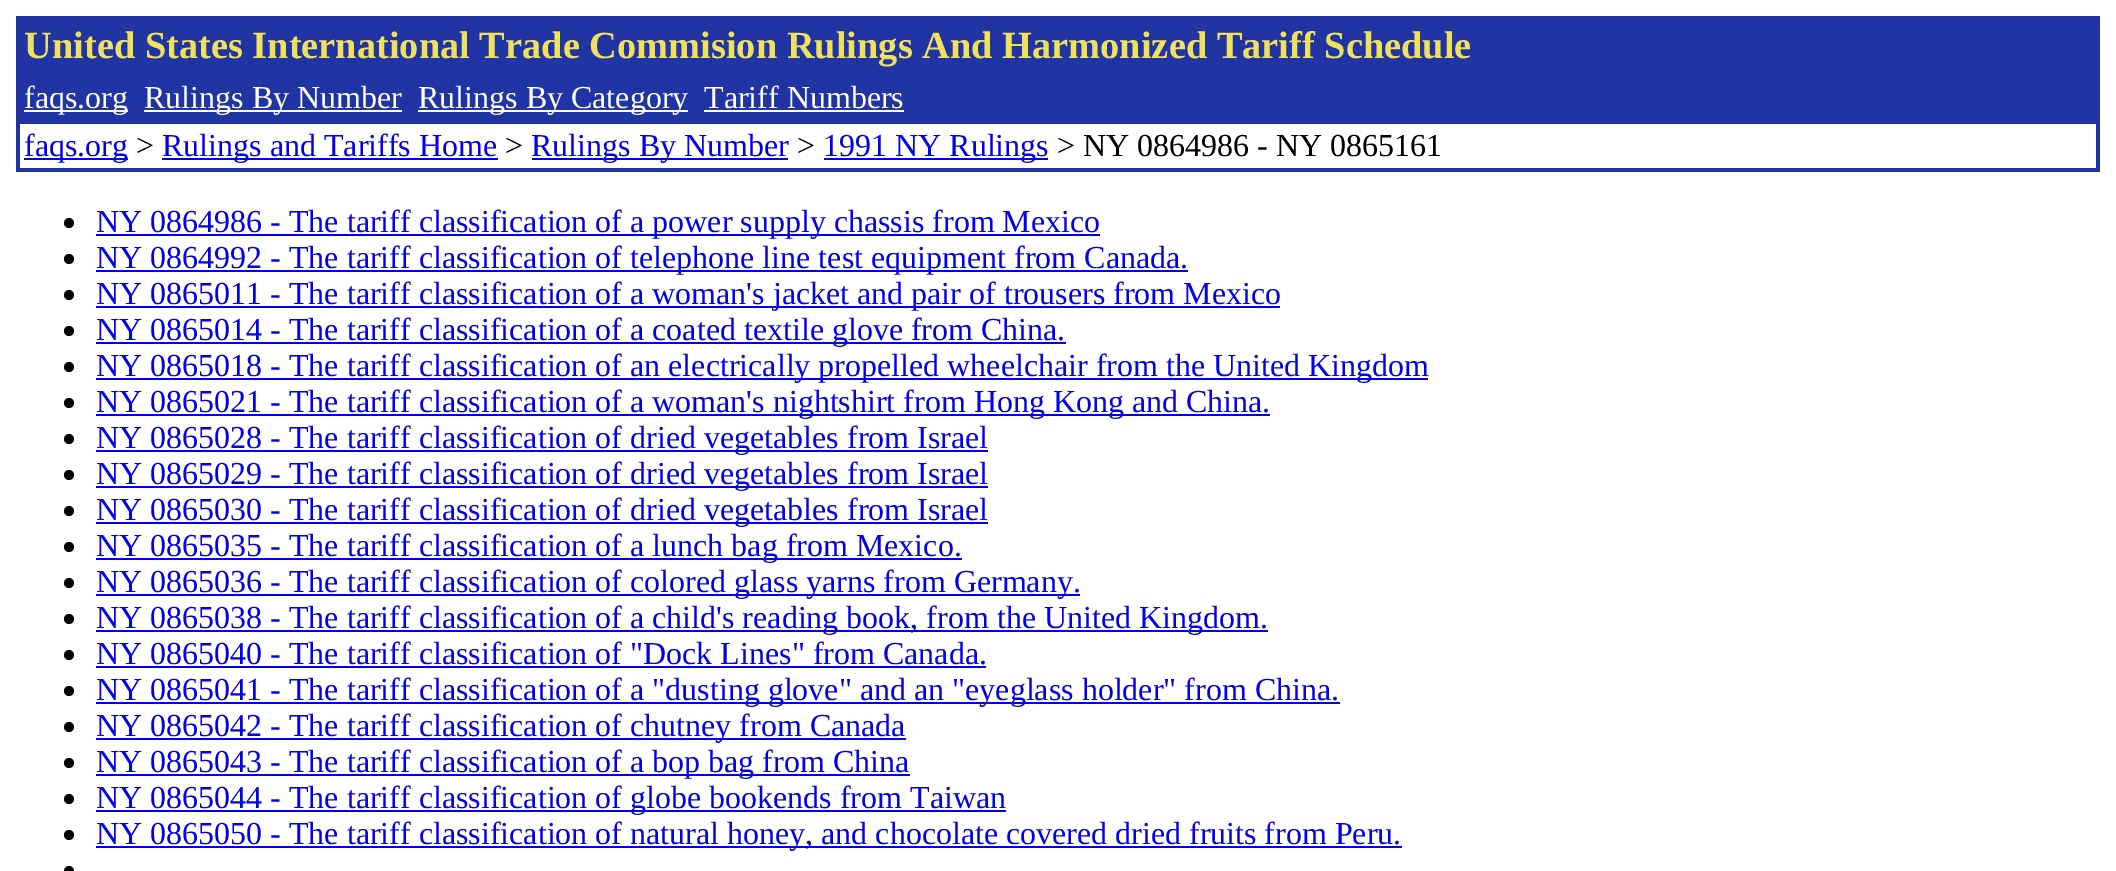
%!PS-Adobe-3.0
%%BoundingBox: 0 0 2116 871
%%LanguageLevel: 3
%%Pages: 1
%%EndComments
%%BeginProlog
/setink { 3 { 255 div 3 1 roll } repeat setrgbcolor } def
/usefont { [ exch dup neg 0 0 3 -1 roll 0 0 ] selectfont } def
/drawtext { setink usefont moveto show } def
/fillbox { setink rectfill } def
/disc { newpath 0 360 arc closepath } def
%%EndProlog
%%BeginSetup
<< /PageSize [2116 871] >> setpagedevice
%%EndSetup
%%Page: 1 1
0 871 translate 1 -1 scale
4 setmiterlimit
0 0 2116 871 255 255 255 fillbox
16 16 2084 156 33 52 163 fillbox
(United States International Trade Commision Rulings And Harmonized Tariff Schedule) 24 58 /LiberationSerif-Bold 38.4 239 225 93 drawtext
24 110 104 2 255 255 255 fillbox
(faqs.org) 24 108 /LiberationSerif-Regular 32 255 255 255 drawtext
144 110 258 2 255 255 255 fillbox
(Rulings By Number) 144 108 /LiberationSerif-Regular 32 255 255 255 drawtext
418 110 270 2 255 255 255 fillbox
(Rulings By Category) 418 108 /LiberationSerif-Regular 32 255 255 255 drawtext
(Tariff Numbers) 704 108 /LiberationSerif-Regular 32 255 255 255 drawtext
704 110 200 2 255 255 255 fillbox
20 124 2076 44 255 255 255 fillbox
24 158 104 2 0 0 238 fillbox
(faqs.org) 24 156 /LiberationSerif-Regular 32 0 0 238 drawtext
(>) 136 156 /LiberationSerif-Regular 32 0 0 0 drawtext
162 158 336 2 0 0 238 fillbox
(Rulings and Tariffs Home) 162 156 /LiberationSerif-Regular 32 0 0 238 drawtext
(>) 505 156 /LiberationSerif-Regular 32 0 0 0 drawtext
532 158 256 2 0 0 238 fillbox
(Rulings By Number) 531 156 /LiberationSerif-Regular 32 0 0 238 drawtext
(>) 797 156 /LiberationSerif-Regular 32 0 0 0 drawtext
824 158 224 2 0 0 238 fillbox
(1991 NY Rulings) 823 156 /LiberationSerif-Regular 32 0 0 238 drawtext
(> NY 0864986 - NY 0865161) 1057 156 /LiberationSerif-Regular 32 0 0 0 drawtext
69 223 5 disc fill
96 234 1004 2 0 0 238 fillbox
(NY 0864986 - The tariff classification of a power supply chassis from Mexico) 96 232 /LiberationSerif-Regular 32 0 0 238 drawtext
0 0 0 setink
69 259 5 disc fill
96 270 1092 2 0 0 238 fillbox
(NY 0864992 - The tariff classification of telephone line test equipment from Canada.) 96 268 /LiberationSerif-Regular 32 0 0 238 drawtext
0 0 0 setink
69 295 5 disc fill
96 306 1184 2 0 0 238 fillbox
(NY 0865011 - The tariff classification of a woman's jacket and pair of trousers from Mexico) 96 304 /LiberationSerif-Regular 32 0 0 238 drawtext
0 0 0 setink
69 331 5 disc fill
96 342 970 2 0 0 238 fillbox
(NY 0865014 - The tariff classification of a coated textile glove from China.) 96 340 /LiberationSerif-Regular 32 0 0 238 drawtext
0 0 0 setink
69 367 5 disc fill
96 378 1332 2 0 0 238 fillbox
(NY 0865018 - The tariff classification of an electrically propelled wheelchair from the United Kingdom) 96 376 /LiberationSerif-Regular 32 0 0 238 drawtext
0 0 0 setink
69 403 5 disc fill
96 414 1174 2 0 0 238 fillbox
(NY 0865021 - The tariff classification of a woman's nightshirt from Hong Kong and China.) 96 412 /LiberationSerif-Regular 32 0 0 238 drawtext
0 0 0 setink
69 439 5 disc fill
96 450 892 2 0 0 238 fillbox
(NY 0865028 - The tariff classification of dried vegetables from Israel) 96 448 /LiberationSerif-Regular 32 0 0 238 drawtext
0 0 0 setink
69 475 5 disc fill
96 486 892 2 0 0 238 fillbox
(NY 0865029 - The tariff classification of dried vegetables from Israel) 96 484 /LiberationSerif-Regular 32 0 0 238 drawtext
0 0 0 setink
69 511 5 disc fill
96 522 892 2 0 0 238 fillbox
(NY 0865030 - The tariff classification of dried vegetables from Israel) 96 520 /LiberationSerif-Regular 32 0 0 238 drawtext
0 0 0 setink
69 547 5 disc fill
96 558 866 2 0 0 238 fillbox
(NY 0865035 - The tariff classification of a lunch bag from Mexico.) 96 556 /LiberationSerif-Regular 32 0 0 238 drawtext
0 0 0 setink
69 583 5 disc fill
96 594 984 2 0 0 238 fillbox
(NY 0865036 - The tariff classification of colored glass yarns from Germany.) 96 592 /LiberationSerif-Regular 32 0 0 238 drawtext
0 0 0 setink
69 619 5 disc fill
96 630 1172 2 0 0 238 fillbox
(NY 0865038 - The tariff classification of a child's reading book, from the United Kingdom.) 96 628 /LiberationSerif-Regular 32 0 0 238 drawtext
0 0 0 setink
69 655 5 disc fill
(NY 0865040 - The tariff classification of "Dock Lines" from Canada.) 96 664 /LiberationSerif-Regular 32 0 0 238 drawtext
96 666 890 2 0 0 238 fillbox
0 0 0 setink
69 691 5 disc fill
96 702 1244 2 0 0 238 fillbox
(NY 0865041 - The tariff classification of a "dusting glove" and an "eyeglass holder" from China.) 96 700 /LiberationSerif-Regular 32 0 0 238 drawtext
0 0 0 setink
69 727 5 disc fill
96 738 810 2 0 0 238 fillbox
(NY 0865042 - The tariff classification of chutney from Canada) 96 736 /LiberationSerif-Regular 32 0 0 238 drawtext
0 0 0 setink
69 763 5 disc fill
96 774 814 2 0 0 238 fillbox
(NY 0865043 - The tariff classification of a bop bag from China) 96 772 /LiberationSerif-Regular 32 0 0 238 drawtext
0 0 0 setink
69 799 5 disc fill
96 810 910 2 0 0 238 fillbox
(NY 0865044 - The tariff classification of globe bookends from Taiwan) 96 808 /LiberationSerif-Regular 32 0 0 238 drawtext
0 0 0 setink
69 835 5 disc fill
96 846 1306 2 0 0 238 fillbox
(NY 0865050 - The tariff classification of natural honey, and chocolate covered dried fruits from Peru.) 96 844 /LiberationSerif-Regular 32 0 0 238 drawtext
0 0 0 setink
69 871 5 disc fill
showpage
%%EOF
